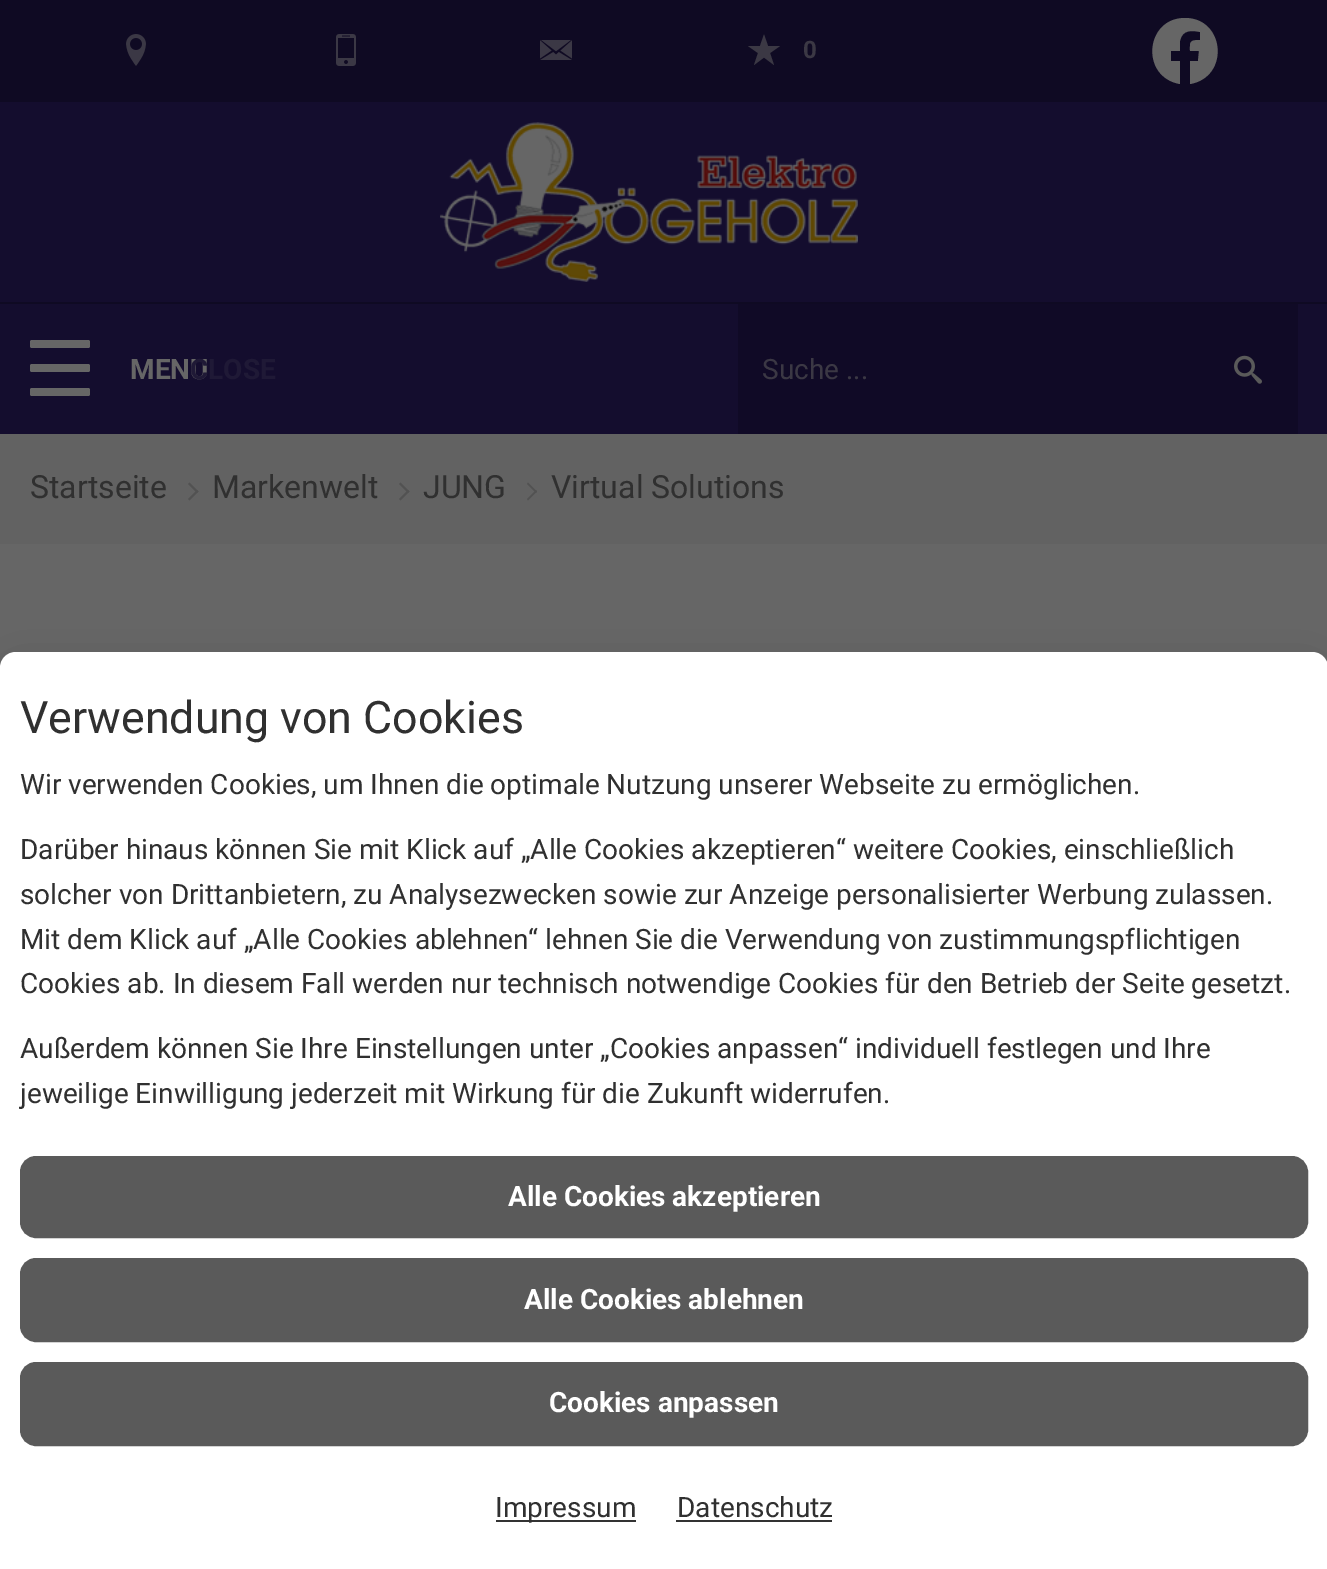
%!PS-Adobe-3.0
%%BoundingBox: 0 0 1327 1569
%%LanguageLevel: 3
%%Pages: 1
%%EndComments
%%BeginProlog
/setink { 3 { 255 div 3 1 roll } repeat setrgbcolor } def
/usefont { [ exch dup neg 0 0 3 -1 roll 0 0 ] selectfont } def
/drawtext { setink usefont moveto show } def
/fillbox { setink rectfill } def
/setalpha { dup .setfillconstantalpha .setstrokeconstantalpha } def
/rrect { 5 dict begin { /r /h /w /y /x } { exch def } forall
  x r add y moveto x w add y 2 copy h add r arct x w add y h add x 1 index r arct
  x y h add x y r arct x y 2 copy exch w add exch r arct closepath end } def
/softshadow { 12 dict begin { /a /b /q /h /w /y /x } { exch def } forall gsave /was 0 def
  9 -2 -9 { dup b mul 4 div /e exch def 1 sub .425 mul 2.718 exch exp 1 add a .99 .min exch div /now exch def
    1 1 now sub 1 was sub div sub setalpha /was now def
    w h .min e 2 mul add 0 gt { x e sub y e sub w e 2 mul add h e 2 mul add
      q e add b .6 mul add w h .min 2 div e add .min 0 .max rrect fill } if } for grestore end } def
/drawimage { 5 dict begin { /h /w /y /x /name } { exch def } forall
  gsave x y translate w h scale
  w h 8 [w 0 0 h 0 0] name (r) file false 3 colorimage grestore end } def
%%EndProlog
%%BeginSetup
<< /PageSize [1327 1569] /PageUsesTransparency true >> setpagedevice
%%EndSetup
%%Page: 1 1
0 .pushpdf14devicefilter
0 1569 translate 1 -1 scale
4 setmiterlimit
0 0 1327 1569 102 102 102 fillbox
0 0 1327 102 15 10 35 fillbox
(assets/img1.rgb) 126 34 20 32 drawimage
(assets/img2.rgb) 336 34 20 32 drawimage
(assets/img3.rgb) 540 40 32 20 drawimage
59 56 68 setink
780 46 moveto 768 46 lineto 764 34.5 lineto 760 46 lineto 748 46 lineto 758 53 lineto 754 65 lineto 764 57.5 lineto 774 65 lineto 770 53 lineto closepath fill
(0) 803 58 /Roboto-Bold 24 59 56 68 drawtext
102 102 102 setink
1185 18 moveto 1145 18 1140 77 1180 84 curveto 1180 61 lineto 1171 61 lineto 1171 51 lineto 1180 51 lineto 1180 41 lineto 1182 30 1191 30 1200 32 curveto 1200 40 lineto 1189 40 1190 42 1190 51 curveto 1199 51 lineto 1198 61 lineto 1190 61 lineto 1190 84 lineto 1230 77 1225 18 1185 18 curveto closepath fill
0 102 1327 200 20 13 46 fillbox
(assets/img4.rgb) 440 122 418 160 drawimage
0 304 1327 130 20 13 46 fillbox
0 302 1327 2 15 10 35 fillbox
102 102 102 setink
30 340 60 8 2 rrect fill
30 364 60 8 2 rrect fill
30 388 60 8 2 rrect fill
(MENU) 130 379 /Roboto-Bold 28 102 102 102 drawtext
(CLOSE) 190 379 /Roboto-Bold 28 31 25 54 drawtext
738 304 560 130 16 10 38 fillbox
(Suche ...) 762 379 /Roboto-Regular 28 59 56 68 drawtext
(assets/img5.rgb) 1234 355 28 29 drawimage
0 434 1327 110 98 98 98 fillbox
(Startseite) 30 498 /Roboto-Regular 32 48 48 48 drawtext
82 82 82 setink
189.5 482.5 moveto 198.5 491.5 lineto 197 493 lineto 188 484 lineto closepath fill
197 490 moveto 198.5 491.5 lineto 189.5 500.5 lineto 188 499 lineto closepath fill
(Markenwelt) 212 498 /Roboto-Regular 32 48 48 48 drawtext
82 82 82 setink
400.5 482.5 moveto 409.5 491.5 lineto 408 493 lineto 399 484 lineto closepath fill
408 490 moveto 409.5 491.5 lineto 400.5 500.5 lineto 399 499 lineto closepath fill
(JUNG) 423 498 /Roboto-Regular 32 48 48 48 drawtext
82 82 82 setink
528 482.5 moveto 537 491.5 lineto 536 493 lineto 527 484 lineto closepath fill
536 490 moveto 537 491.5 lineto 528 500.5 lineto 527 499 lineto closepath fill
(Virtual Solutions) 551 498 /Roboto-Regular 32 48 48 48 drawtext
0 0 0 setink
0 664 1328 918 16 28 0.1 softshadow
255 255 255 setink
16 652 moveto 1312 652 lineto 1321 652 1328 659 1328 668 curveto 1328 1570 lineto 0 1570 lineto 0 668 lineto 0 659 7 652 16 652 curveto closepath fill
(Verwendung von Cookies) 20 733 /Roboto-Regular 44.75 48 48 48 drawtext
(Wir verwenden Cookies, um Ihnen die optimale Nutzung unserer Webseite zu ermöglichen.) 20 794 /Roboto-Regular 28 48 48 48 drawtext
(Darüber hinaus können Sie mit Klick auf „Alle Cookies akzeptieren“ weitere Cookies, einschließlich) 20 859 /Roboto-Regular 28 48 48 48 drawtext
(solcher von Drittanbietern, zu Analysezwecken sowie zur Anzeige personalisierter Werbung zulassen.) 20 904 /Roboto-Regular 28 48 48 48 drawtext
(Mit dem Klick auf „Alle Cookies ablehnen“ lehnen Sie die Verwendung von zustimmungspflichtigen) 20 949 /Roboto-Regular 28 48 48 48 drawtext
(Cookies ab. In diesem Fall werden nur technisch notwendige Cookies für den Betrieb der Seite gesetzt.) 20 993 /Roboto-Regular 28 48 48 48 drawtext
(Außerdem können Sie Ihre Einstellungen unter „Cookies anpassen“ individuell festlegen und Ihre) 20 1058 /Roboto-Regular 28 48 48 48 drawtext
(jeweilige Einwilligung jederzeit mit Wirkung für die Zukunft widerrufen.) 20 1103 /Roboto-Regular 28 48 48 48 drawtext
90 90 90 setink
21 1157 1286 80 15 rrect gsave fill grestore
2 setlinewidth
stroke
(Alle Cookies akzeptieren) 508 1206 /Roboto-Bold 28 255 255 255 drawtext
90 90 90 setink
21 1259 1286 82 15 rrect gsave fill grestore
stroke
(Alle Cookies ablehnen) 524 1309 /Roboto-Bold 28 255 255 255 drawtext
90 90 90 setink
21 1363 1286 82 15 rrect gsave fill grestore
stroke
(Cookies anpassen) 549 1412 /Roboto-Bold 28 255 255 255 drawtext
496 1520 140 2 51 51 51 fillbox
(Impressum) 495 1517 /Roboto-Regular 28 48 48 48 drawtext
(Datenschutz) 677 1517 /Roboto-Regular 28 48 48 48 drawtext
676 1520 156 2 51 51 51 fillbox
.poppdf14devicefilter showpage
%%EOF
